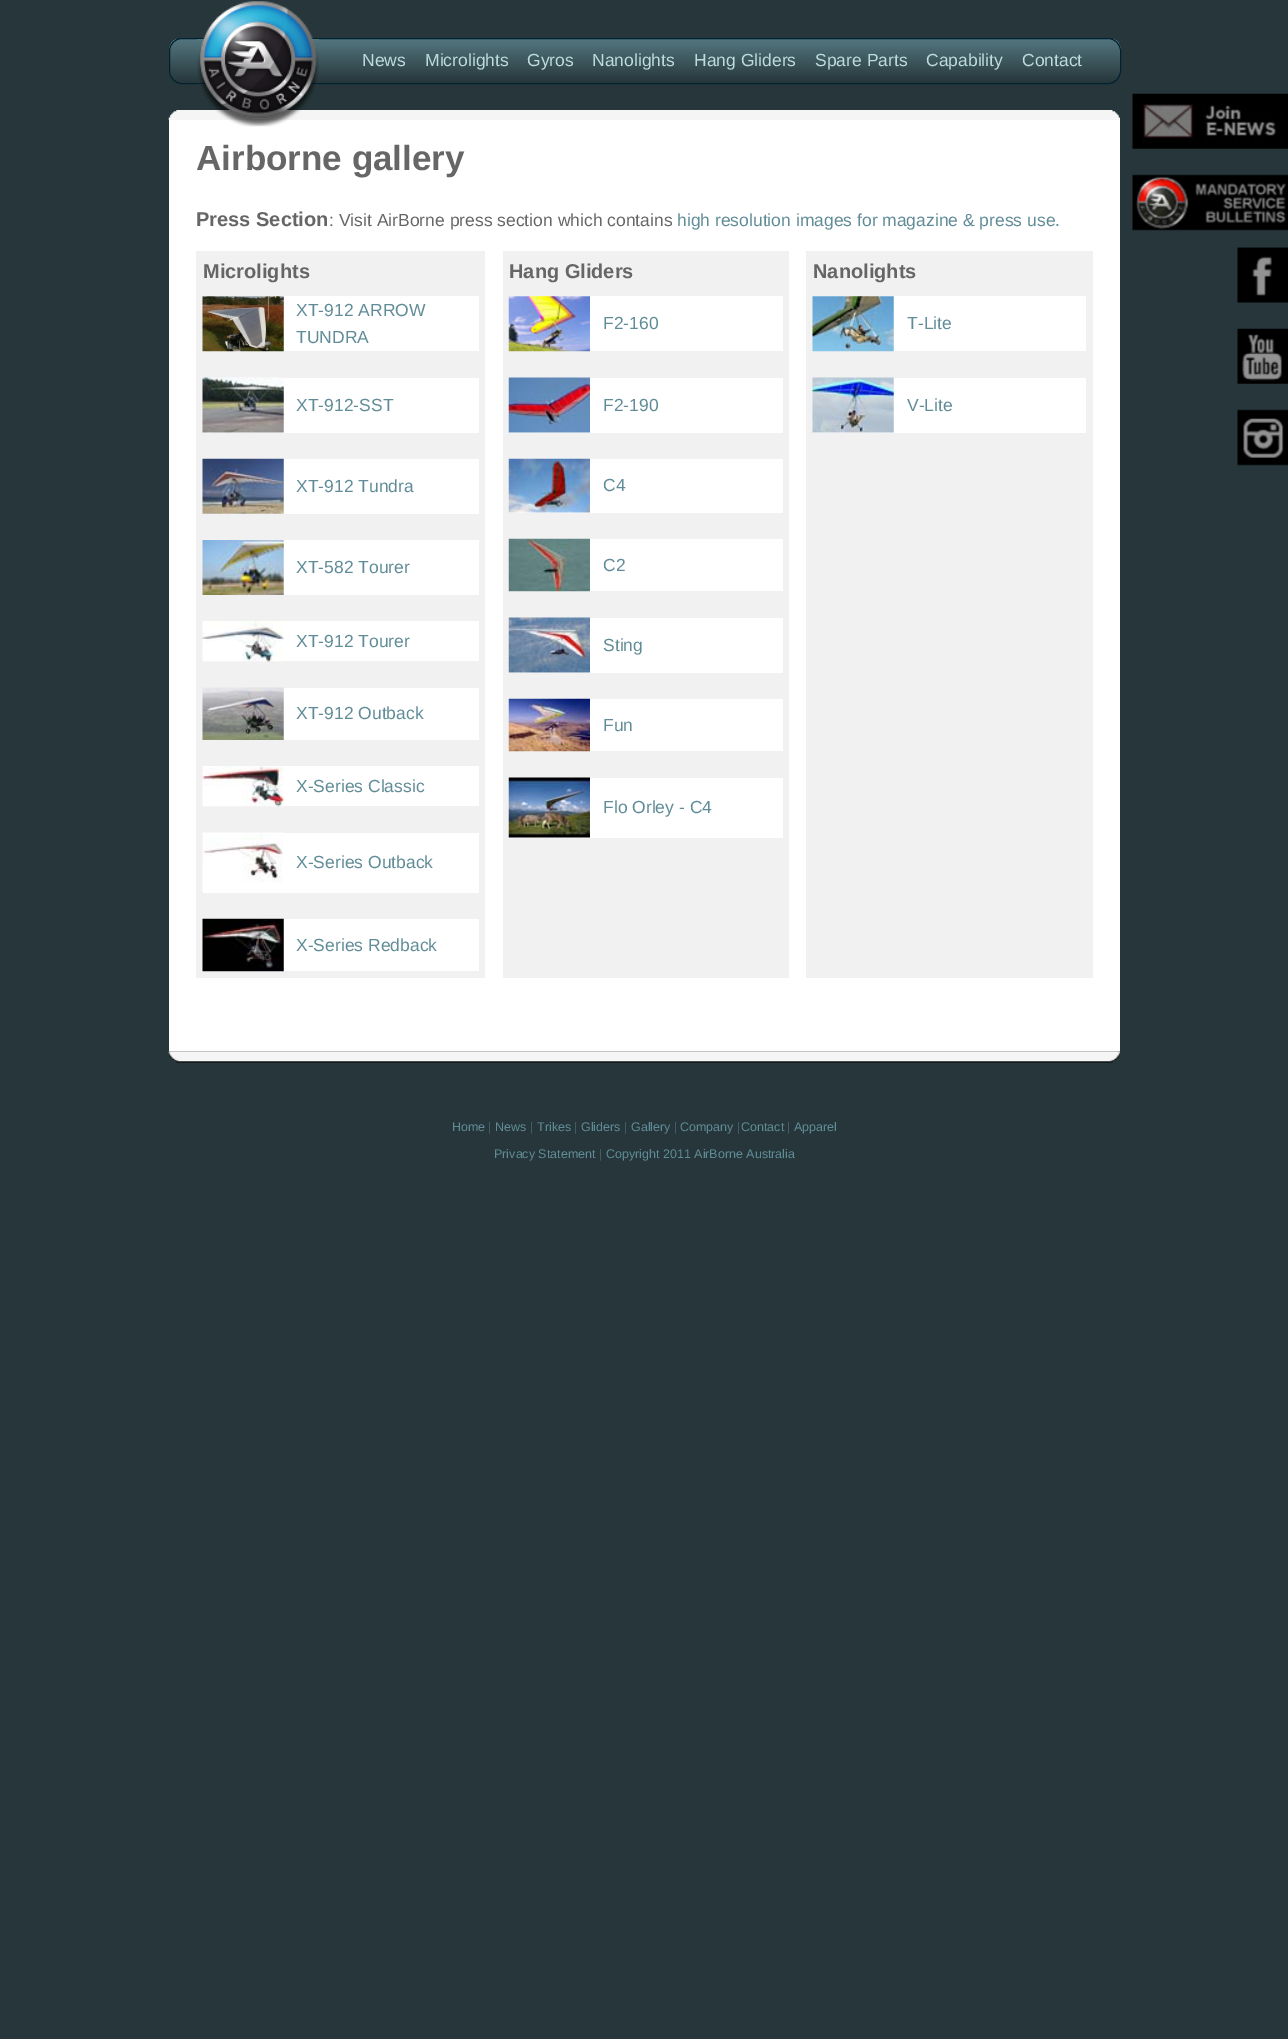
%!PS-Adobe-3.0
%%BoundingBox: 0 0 1288 2039
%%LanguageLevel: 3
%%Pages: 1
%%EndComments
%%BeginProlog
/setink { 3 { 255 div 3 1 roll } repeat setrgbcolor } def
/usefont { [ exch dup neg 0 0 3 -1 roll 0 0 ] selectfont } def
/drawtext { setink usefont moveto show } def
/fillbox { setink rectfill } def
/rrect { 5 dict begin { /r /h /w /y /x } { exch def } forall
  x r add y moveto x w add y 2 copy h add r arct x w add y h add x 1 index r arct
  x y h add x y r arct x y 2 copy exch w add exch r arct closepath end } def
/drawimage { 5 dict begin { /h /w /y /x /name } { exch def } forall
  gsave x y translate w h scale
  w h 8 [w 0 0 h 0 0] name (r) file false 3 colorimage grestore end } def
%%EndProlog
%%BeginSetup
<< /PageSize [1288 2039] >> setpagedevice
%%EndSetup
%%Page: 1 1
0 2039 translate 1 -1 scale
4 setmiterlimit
0 0 1288 2039 38 54 58 fillbox
gsave
169 38 952 46 13 rrect clip newpath
gsave 169 39 moveto 1121 39 lineto 1121 83 lineto 169 83 lineto closepath clip newpath
<< /ShadingType 2 /ColorSpace /DeviceRGB /Coords [170 39 170 83] /Extend [true true] /Function << /FunctionType 2 /Domain [0 1] /C0 [0.329 0.463 0.498] /C1 [0.149 0.212 0.227] /N 1 >> >> shfill grestore
grestore
0 34 50 setink
169.5 38.5 951 45 12.5 rrect stroke
(assets/img2.rgb) 168 110 952 10 drawimage
169 120 951 931 255 255 255 fillbox
(assets/img1.rgb) 197 1 122 126 drawimage
(News) 362 66 /LiberationSans-Regular 17.5 189 220 222 drawtext
(Microlights) 425 66 /LiberationSans-Regular 17.5 189 220 222 drawtext
(Gyros) 527 66 /LiberationSans-Regular 17.5 189 220 222 drawtext
(Nanolights) 592 66 /LiberationSans-Regular 17.5 189 220 222 drawtext
(Hang Gliders) 694 66 /LiberationSans-Regular 17.5 189 220 222 drawtext
(Spare Parts) 815 66 /LiberationSans-Regular 17.5 189 220 222 drawtext
(Capability) 926 66 /LiberationSans-Regular 17.5 189 220 222 drawtext
(Contact) 1022 66 /LiberationSans-Regular 17.5 189 220 222 drawtext
(Airborne gallery) 196 170 /LiberationSans-Bold 35 102 102 102 drawtext
(Press Section) 196 226 /LiberationSans-Bold 20 102 102 102 drawtext
(: Visit AirBorne press section which contains) 329 226 /LiberationSans-Regular 17.5 102 102 102 drawtext
(high resolution images for magazine & press use.) 677 226 /LiberationSans-Regular 17.5 96 140 151 drawtext
196 251 289 727 241 241 241 fillbox
(Microlights) 203 278 /LiberationSans-Bold 20 102 102 102 drawtext
503 251 286 727 241 241 241 fillbox
(Hang Gliders) 509 278 /LiberationSans-Bold 20 102 102 102 drawtext
806 251 287 727 241 241 241 fillbox
(Nanolights) 813 278 /LiberationSans-Bold 20 102 102 102 drawtext
203 296 276 55 255 255 255 fillbox
(assets/img3.rgb) 202 296 82 56 drawimage
(XT-912 ARROW) 296 316 /LiberationSans-Regular 17.5 96 140 151 drawtext
(TUNDRA) 296 343 /LiberationSans-Regular 17.5 96 140 151 drawtext
203 378 276 55 255 255 255 fillbox
(assets/img4.rgb) 202 377 82 56 drawimage
(XT-912-SST) 296 411 /LiberationSans-Regular 17.5 96 140 151 drawtext
203 459 276 55 255 255 255 fillbox
(assets/img5.rgb) 202 458 82 56 drawimage
(XT-912 Tundra) 296 492 /LiberationSans-Regular 17.5 96 140 151 drawtext
283 540 196 55 255 255 255 fillbox
(assets/img6.rgb) 202 540 82 55 drawimage
(XT-582 Tourer) 296 573 /LiberationSans-Regular 17.5 96 140 151 drawtext
203 621 276 40 255 255 255 fillbox
(assets/img7.rgb) 202 621 82 41 drawimage
(XT-912 Tourer) 296 647 /LiberationSans-Regular 17.5 96 140 151 drawtext
283 688 196 52 255 255 255 fillbox
(assets/img8.rgb) 202 687 82 53 drawimage
(XT-912 Outback) 296 719 /LiberationSans-Regular 17.5 96 140 151 drawtext
203 766 276 40 255 255 255 fillbox
(assets/img9.rgb) 202 766 82 41 drawimage
(X-Series Classic) 296 792 /LiberationSans-Regular 17.5 96 140 151 drawtext
203 833 276 60 255 255 255 fillbox
(assets/img10.rgb) 202 832 82 60 drawimage
(X-Series Outback) 296 868 /LiberationSans-Regular 17.5 96 140 151 drawtext
283 919 196 52 255 255 255 fillbox
(assets/img11.rgb) 202 918 82 54 drawimage
(X-Series Redback) 296 951 /LiberationSans-Regular 17.5 96 140 151 drawtext
509 296 274 55 255 255 255 fillbox
(assets/img12.rgb) 508 296 82 56 drawimage
(F2-160) 603 329 /LiberationSans-Regular 17.5 96 140 151 drawtext
509 378 274 55 255 255 255 fillbox
(assets/img13.rgb) 508 377 82 56 drawimage
(F2-190) 603 411 /LiberationSans-Regular 17.5 96 140 151 drawtext
509 459 274 54 255 255 255 fillbox
(assets/img14.rgb) 508 458 82 55 drawimage
(C4) 603 491 /LiberationSans-Regular 17.5 96 140 151 drawtext
590 539 193 52 255 255 255 fillbox
(assets/img15.rgb) 508 538 82 54 drawimage
(C2) 603 571 /LiberationSans-Regular 17.5 96 140 151 drawtext
509 618 274 55 255 255 255 fillbox
(assets/img16.rgb) 508 617 82 56 drawimage
(Sting) 603 651 /LiberationSans-Regular 17.5 96 140 151 drawtext
590 699 193 52 255 255 255 fillbox
(assets/img17.rgb) 508 698 82 54 drawimage
(Fun) 603 731 /LiberationSans-Regular 17.5 96 140 151 drawtext
509 778 274 60 255 255 255 fillbox
(assets/img18.rgb) 508 777 82 61 drawimage
(Flo Orley - C4) 603 813 /LiberationSans-Regular 17.5 96 140 151 drawtext
813 296 273 55 255 255 255 fillbox
(assets/img19.rgb) 812 296 82 56 drawimage
(T-Lite) 907 329 /LiberationSans-Regular 17.5 96 140 151 drawtext
813 378 273 55 255 255 255 fillbox
(assets/img20.rgb) 812 377 82 56 drawimage
(V-Lite) 907 411 /LiberationSans-Regular 17.5 96 140 151 drawtext
(assets/img21.rgb) 168 1051 952 12 drawimage
(Home) 452 1131 /LiberationSans-Regular 12.5 96 140 151 drawtext
(|) 488 1131 /LiberationSans-Regular 12.5 65 93 100 drawtext
(News) 495 1131 /LiberationSans-Regular 12.5 96 140 151 drawtext
(|) 530 1131 /LiberationSans-Regular 12.5 65 93 100 drawtext
(Trikes) 537 1131 /LiberationSans-Regular 12.5 96 140 151 drawtext
(|) 574 1131 /LiberationSans-Regular 12.5 65 93 100 drawtext
(Gliders) 581 1131 /LiberationSans-Regular 12.5 96 140 151 drawtext
(|) 624 1131 /LiberationSans-Regular 12.5 65 93 100 drawtext
(Gallery) 631 1131 /LiberationSans-Regular 12.5 96 140 151 drawtext
(|) 674 1131 /LiberationSans-Regular 12.5 65 93 100 drawtext
(Company) 680 1131 /LiberationSans-Regular 12.5 96 140 151 drawtext
(|) 737 1131 /LiberationSans-Regular 12.5 65 93 100 drawtext
(Contact) 741 1131 /LiberationSans-Regular 12.5 96 140 151 drawtext
(|) 787 1131 /LiberationSans-Regular 12.5 65 93 100 drawtext
(Apparel) 794 1131 /LiberationSans-Regular 12.5 96 140 151 drawtext
(Privacy Statement) 494 1158 /LiberationSans-Regular 12.5 96 140 151 drawtext
(|) 599 1158 /LiberationSans-Regular 12.5 65 93 100 drawtext
(Copyright 2011 AirBorne Australia) 606 1158 /LiberationSans-Regular 12.5 96 140 151 drawtext
(assets/img22.rgb) 1132 93 156 56 drawimage
(assets/img23.rgb) 1132 174 156 57 drawimage
(assets/img24.rgb) 1237 247 51 56 drawimage
(assets/img25.rgb) 1237 328 51 56 drawimage
(assets/img26.rgb) 1237 409 51 57 drawimage
showpage
%%EOF
